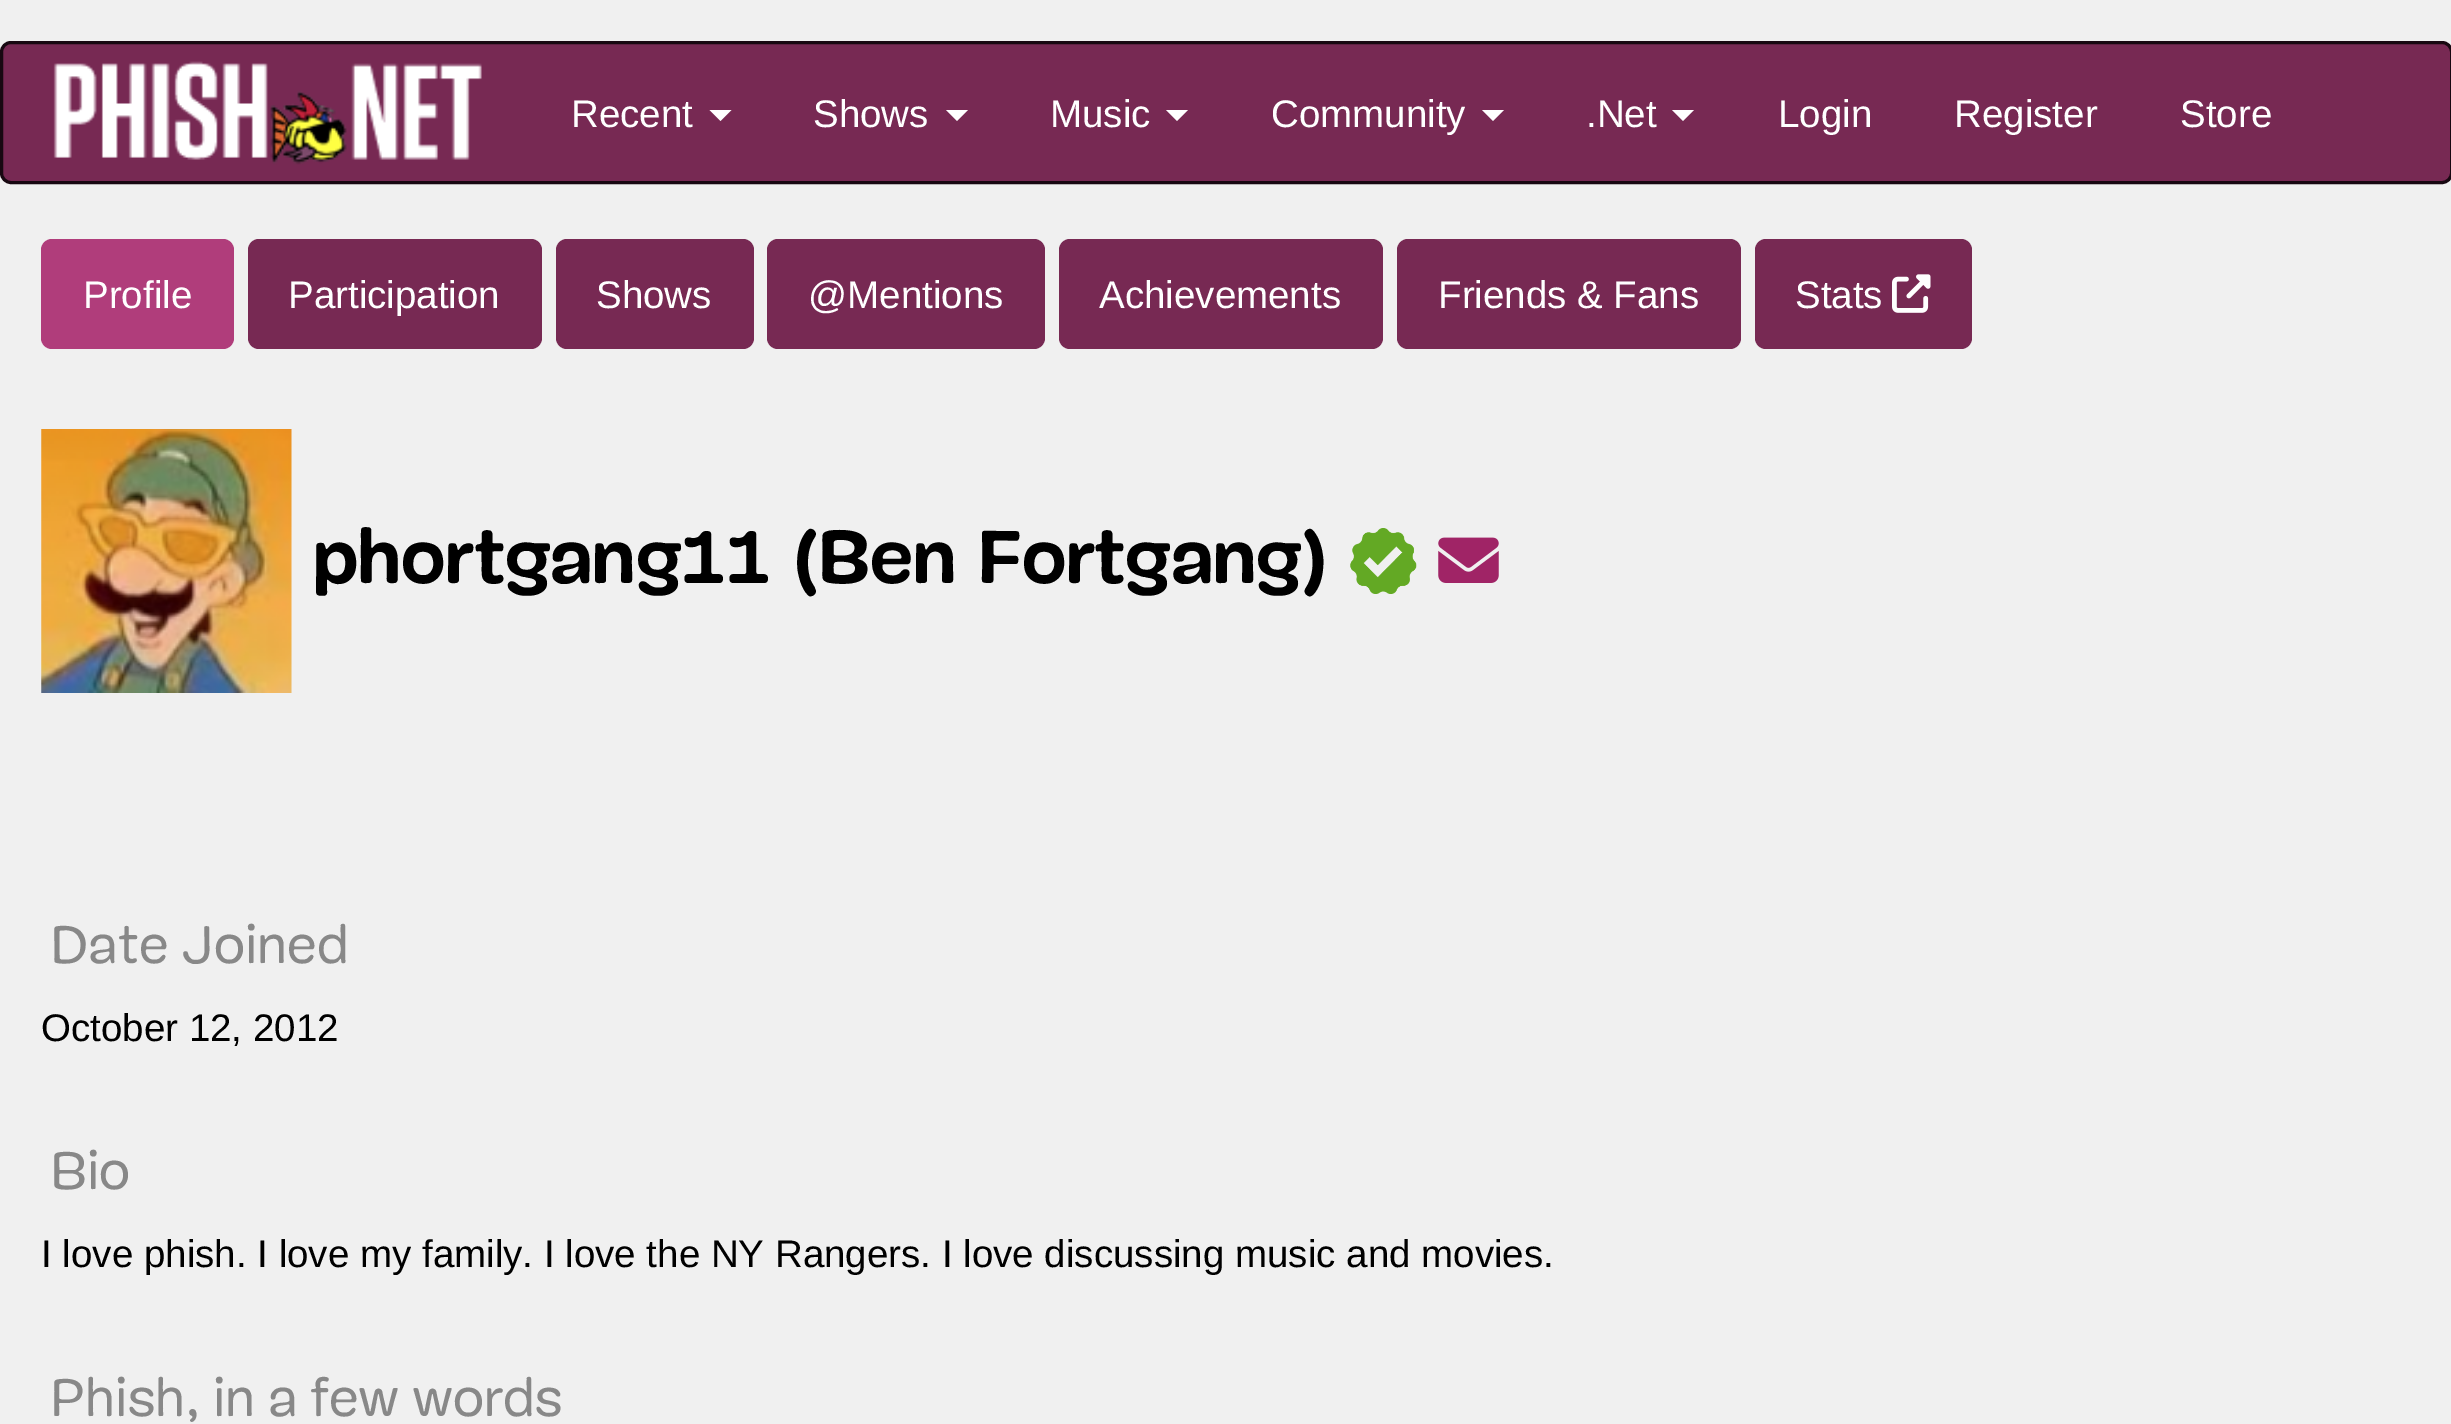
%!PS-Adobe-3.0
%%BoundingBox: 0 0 2451 1424
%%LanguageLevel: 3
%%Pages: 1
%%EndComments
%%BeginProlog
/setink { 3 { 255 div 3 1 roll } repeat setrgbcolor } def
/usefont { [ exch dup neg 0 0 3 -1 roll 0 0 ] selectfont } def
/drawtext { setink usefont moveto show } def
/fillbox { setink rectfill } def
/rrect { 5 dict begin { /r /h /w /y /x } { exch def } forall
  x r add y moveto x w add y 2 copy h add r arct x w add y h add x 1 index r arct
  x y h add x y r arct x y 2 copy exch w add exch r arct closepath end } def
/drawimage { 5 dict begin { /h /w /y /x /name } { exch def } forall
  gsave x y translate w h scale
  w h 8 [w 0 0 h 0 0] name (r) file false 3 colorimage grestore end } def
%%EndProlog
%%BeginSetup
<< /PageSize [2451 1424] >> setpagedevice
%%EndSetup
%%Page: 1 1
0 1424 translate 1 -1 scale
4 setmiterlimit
0 0 2451 1424 240 240 240 fillbox
119 41 83 setink
1.5 42.5 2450 140 9.5 rrect gsave fill grestore
24 8 17 setink
3 setlinewidth
stroke
(assets/img1.rgb) 53 61 429 104 drawimage
(Recent) 571 127 /LiberationSans-Regular 38.5 255 255 255 drawtext
709.5 110 moveto 731.5 110 lineto 720.5 121 lineto closepath fill
(Shows) 813 127 /LiberationSans-Regular 38.5 255 255 255 drawtext
946 110 moveto 968 110 lineto 957 121 lineto closepath fill
(Music) 1050 127 /LiberationSans-Regular 38.5 255 255 255 drawtext
1166 110 moveto 1188 110 lineto 1177 121 lineto closepath fill
(Community) 1271 127 /LiberationSans-Regular 38.5 255 255 255 drawtext
1482 110 moveto 1504 110 lineto 1493 121 lineto closepath fill
(.Net) 1586 127 /LiberationSans-Regular 38.5 255 255 255 drawtext
1672 110 moveto 1694 110 lineto 1683 121 lineto closepath fill
(Login) 1778 127 /LiberationSans-Regular 38.5 255 255 255 drawtext
(Register) 1954 127 /LiberationSans-Regular 38.5 255 255 255 drawtext
(Store) 2180 127 /LiberationSans-Regular 38.5 255 255 255 drawtext
176 61 123 setink
41 239 193 110 11 rrect fill
(Profile) 83 308 /LiberationSans-Regular 38.5 255 255 255 drawtext
119 41 83 setink
248 239 294 110 11 rrect fill
(Participation) 288 308 /LiberationSans-Regular 38.5 255 255 255 drawtext
119 41 83 setink
556 239 198 110 11 rrect fill
(Shows) 596 308 /LiberationSans-Regular 38.5 255 255 255 drawtext
119 41 83 setink
767 239 278 110 11 rrect fill
(@Mentions) 808 308 /LiberationSans-Regular 38.5 255 255 255 drawtext
119 41 83 setink
1059 239 324 110 11 rrect fill
(Achievements) 1099 308 /LiberationSans-Regular 38.5 255 255 255 drawtext
119 41 83 setink
1397 239 344 110 11 rrect fill
(Friends & Fans) 1438 308 /LiberationSans-Regular 38.5 255 255 255 drawtext
119 41 83 setink
1755 239 217 110 11 rrect fill
(Stats) 1795 308 /LiberationSans-Regular 38.5 255 255 255 drawtext
(assets/img2.rgb) 1892 274 39 39 drawimage
(assets/img3.rgb) 41 429 251 264 drawimage
(phortgang11 \(Ben Fortgang\)) 313 583 /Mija-Bold 77 0 0 0 drawtext
(assets/img4.rgb) 1350 528 67 66 drawimage
(assets/img5.rgb) 1438 537 61 46 drawimage
(Date Joined) 50 963 /Mija-Regular 54 136 136 136 drawtext
(October 12, 2012) 41 1041 /LiberationSans-Regular 38.5 0 0 0 drawtext
(Bio) 50 1189 /Mija-Regular 54 136 136 136 drawtext
(I love phish. I love my family. I love the NY Rangers. I love discussing music and movies.) 41 1267 /LiberationSans-Regular 38.5 0 0 0 drawtext
(Phish, in a few words) 50 1416 /Mija-Regular 54 136 136 136 drawtext
showpage
%%EOF
